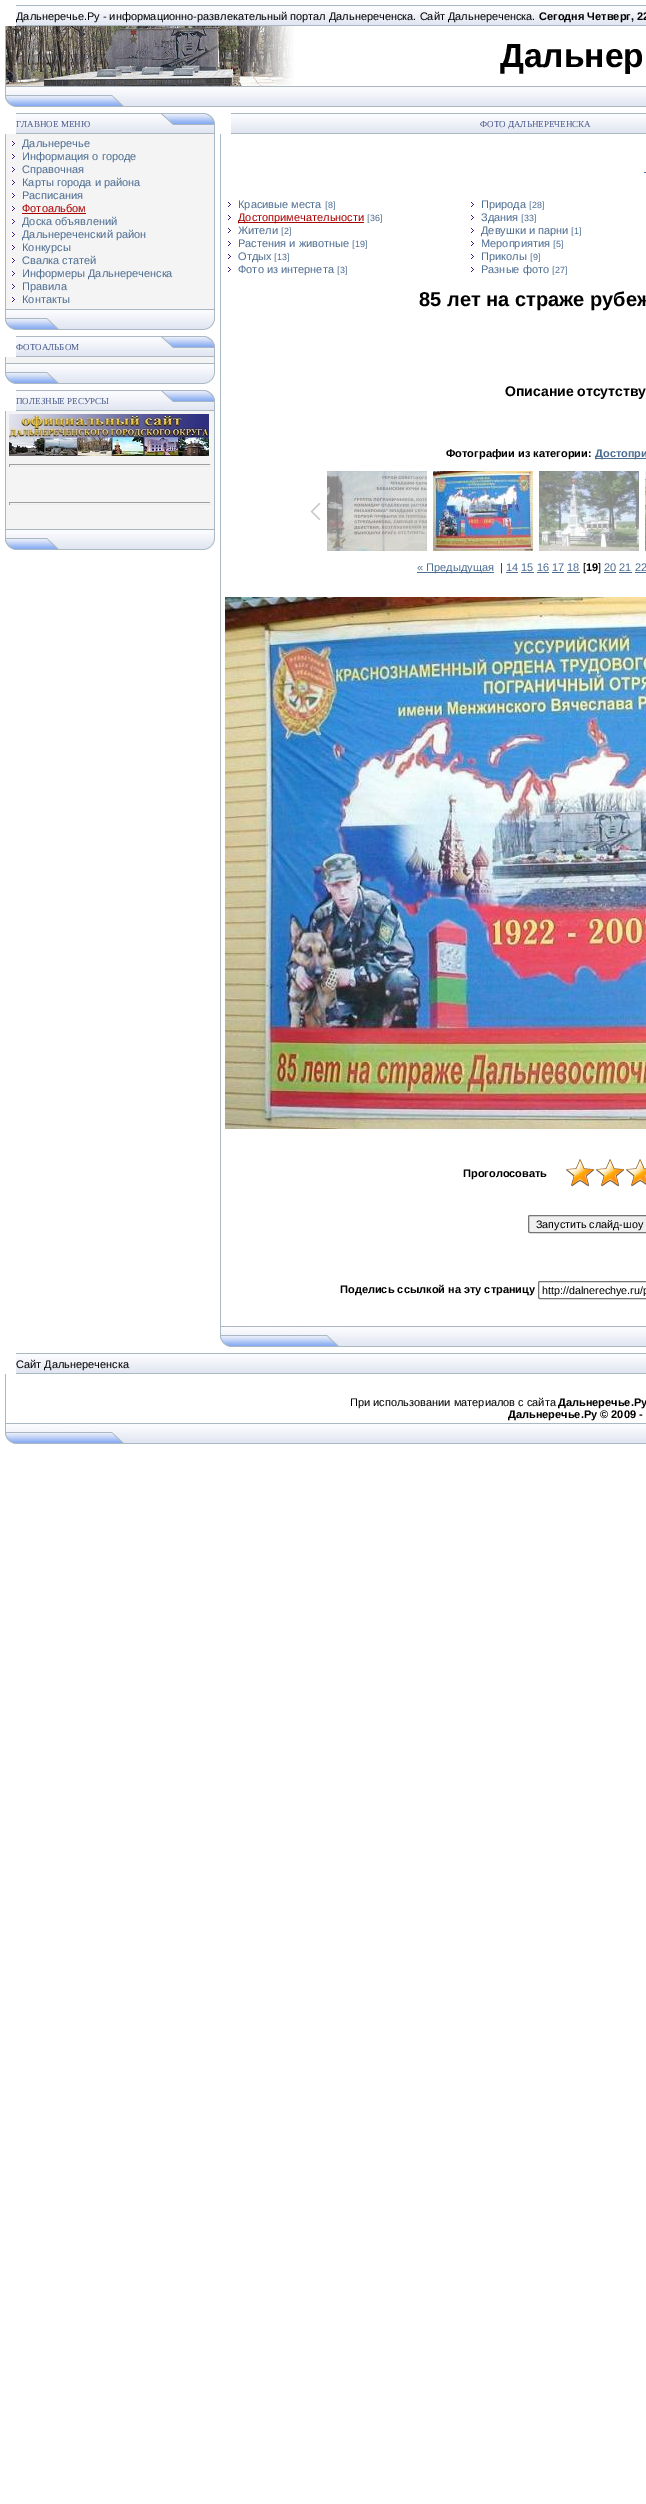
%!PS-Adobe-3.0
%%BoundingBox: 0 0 646 2504
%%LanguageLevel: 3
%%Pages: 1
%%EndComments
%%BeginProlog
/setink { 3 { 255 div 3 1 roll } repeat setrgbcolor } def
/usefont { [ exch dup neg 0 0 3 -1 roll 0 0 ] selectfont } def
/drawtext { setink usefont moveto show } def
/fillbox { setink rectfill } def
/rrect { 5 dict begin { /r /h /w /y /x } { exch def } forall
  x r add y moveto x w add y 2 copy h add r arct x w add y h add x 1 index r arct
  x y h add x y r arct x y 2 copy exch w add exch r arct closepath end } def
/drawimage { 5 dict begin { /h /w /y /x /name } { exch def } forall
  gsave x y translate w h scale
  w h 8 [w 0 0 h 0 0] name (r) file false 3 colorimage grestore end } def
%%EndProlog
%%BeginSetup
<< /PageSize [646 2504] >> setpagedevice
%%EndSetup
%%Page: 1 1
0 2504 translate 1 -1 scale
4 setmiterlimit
0 0 646 2504 255 255 255 fillbox
(assets/img1.rgb) 16 5 630 21 drawimage
(Дальнеречье.Ру - информационно-развлекательный портал Дальнереченска. Сайт Дальнереченска.) 16 20 /LiberationSans-Regular 11 0 0 0 drawtext
(Сегодня Четверг, 22) 539 20 /LiberationSans-Bold 11 0 0 0 drawtext
5 26 1 60 169 184 194 fillbox
(assets/img2.rgb) 6 26 288 60 drawimage
(Дальнер) 500 67 /LiberationSans-Bold 33.5 0 0 0 drawtext
(assets/img3.rgb) 5 86 119 21 drawimage
(assets/img4.rgb) 124 86 522 21 drawimage
(assets/img5.rgb) 16 113 145 21 drawimage
(ГЛАВНОЕ МЕНЮ) 16 127 /LiberationSerif-Regular 9 68 85 136 drawtext
(assets/img6.rgb) 161 113 54 21 drawimage
6 134 208 175 244 244 244 fillbox
214 134 1 175 169 184 194 fillbox
5 134 1 175 169 184 194 fillbox
(assets/img7.rgb) 11 141 4 5 drawimage
(Дальнеречье) 22 147 /LiberationSans-Regular 11 77 109 145 drawtext
(assets/img7.rgb) 11 154 4 5 drawimage
(Информация о городе) 22 160 /LiberationSans-Regular 11 77 109 145 drawtext
(assets/img7.rgb) 11 167 4 5 drawimage
(Справочная) 22 173 /LiberationSans-Regular 11 77 109 145 drawtext
(assets/img7.rgb) 11 180 4 5 drawimage
(Карты города и района) 22 186 /LiberationSans-Regular 11 77 109 145 drawtext
(assets/img7.rgb) 11 193 4 5 drawimage
(Расписания) 22 199 /LiberationSans-Regular 11 77 109 145 drawtext
(assets/img7.rgb) 11 206 4 5 drawimage
(Фотоальбом) 22 212 /LiberationSans-Regular 11 170 0 0 drawtext
22 213 64 1 170 0 0 fillbox
(assets/img7.rgb) 11 219 4 5 drawimage
(Доска объявлений) 22 225 /LiberationSans-Regular 11 77 109 145 drawtext
(assets/img7.rgb) 11 232 4 5 drawimage
(Дальнереченский район) 22 238 /LiberationSans-Regular 11 77 109 145 drawtext
(assets/img7.rgb) 11 245 4 5 drawimage
(Конкурсы) 22 251 /LiberationSans-Regular 11 77 109 145 drawtext
(assets/img7.rgb) 11 258 4 5 drawimage
(Свалка статей) 22 264 /LiberationSans-Regular 11 77 109 145 drawtext
(assets/img7.rgb) 11 271 4 5 drawimage
(Информеры Дальнереченска) 22 277 /LiberationSans-Regular 11 77 109 145 drawtext
(assets/img7.rgb) 11 284 4 5 drawimage
(Правила) 22 290 /LiberationSans-Regular 11 77 109 145 drawtext
(assets/img7.rgb) 11 297 4 5 drawimage
(Контакты) 22 303 /LiberationSans-Regular 11 77 109 145 drawtext
(assets/img8.rgb) 5 309 54 21 drawimage
(assets/img5.rgb) 59 309 145 21 drawimage
(assets/img9.rgb) 204 309 11 21 drawimage
(assets/img5.rgb) 16 336 145 21 drawimage
(ФОТОАЛЬБОМ) 16 350 /LiberationSerif-Regular 9 68 85 136 drawtext
(assets/img6.rgb) 161 336 54 21 drawimage
5 357 210 6 244 244 244 fillbox
214 357 1 6 169 184 194 fillbox
5 357 1 6 169 184 194 fillbox
(assets/img8.rgb) 5 363 54 21 drawimage
(assets/img5.rgb) 59 363 145 21 drawimage
(assets/img9.rgb) 204 363 11 21 drawimage
(assets/img5.rgb) 16 390 145 21 drawimage
(ПОЛЕЗНЫЕ РЕСУРСЫ) 16 404 /LiberationSerif-Regular 9 68 85 136 drawtext
(assets/img6.rgb) 161 390 54 21 drawimage
6 411 208 118 244 244 244 fillbox
214 411 1 118 169 184 194 fillbox
5 411 1 118 169 184 194 fillbox
(assets/img10.rgb) 9 414 200 42 drawimage
9 464 202 1 159 159 159 fillbox
210 464 1 3 238 238 238 fillbox
9 466 202 1 238 238 238 fillbox
9 464 1 3 159 159 159 fillbox
9 502 202 1 159 159 159 fillbox
210 502 1 3 238 238 238 fillbox
9 504 202 1 238 238 238 fillbox
9 502 1 3 159 159 159 fillbox
(assets/img8.rgb) 5 529 54 21 drawimage
(assets/img5.rgb) 59 529 145 21 drawimage
(assets/img9.rgb) 204 529 11 21 drawimage
(assets/img11.rgb) 231 113 415 21 drawimage
(ФОТО ДАЛЬНЕРЕЧЕНСКА) 480 127 /LiberationSerif-Regular 9 68 85 136 drawtext
220 134 1 1192 169 184 194 fillbox
644 172 2 1 77 109 145 fillbox
(assets/img12.rgb) 228 202 3 5 drawimage
(Красивые места) 238 208 /LiberationSans-Regular 11 77 109 145 drawtext
([8]) 325 208 /LiberationSans-Regular 9 77 109 145 drawtext
(assets/img12.rgb) 471 202 3 5 drawimage
(Природа) 481 208 /LiberationSans-Regular 11 77 109 145 drawtext
([28]) 529 208 /LiberationSans-Regular 9 77 109 145 drawtext
(assets/img12.rgb) 228 215 3 5 drawimage
238 222 126 1 170 0 0 fillbox
(Достопримечательности) 238 221 /LiberationSans-Regular 11 170 0 0 drawtext
([36]) 367 221 /LiberationSans-Regular 9 77 109 145 drawtext
(assets/img12.rgb) 471 215 3 5 drawimage
(Здания) 481 221 /LiberationSans-Regular 11 77 109 145 drawtext
([33]) 521 221 /LiberationSans-Regular 9 77 109 145 drawtext
(assets/img12.rgb) 228 228 3 5 drawimage
(Жители) 238 234 /LiberationSans-Regular 11 77 109 145 drawtext
([2]) 281 234 /LiberationSans-Regular 9 77 109 145 drawtext
(assets/img12.rgb) 471 228 3 5 drawimage
(Девушки и парни) 481 234 /LiberationSans-Regular 11 77 109 145 drawtext
([1]) 571 234 /LiberationSans-Regular 9 77 109 145 drawtext
(assets/img12.rgb) 228 241 3 5 drawimage
(Растения и животные) 238 247 /LiberationSans-Regular 11 77 109 145 drawtext
([19]) 352 247 /LiberationSans-Regular 9 77 109 145 drawtext
(assets/img12.rgb) 471 241 3 5 drawimage
(Мероприятия) 481 247 /LiberationSans-Regular 11 77 109 145 drawtext
([5]) 553 247 /LiberationSans-Regular 9 77 109 145 drawtext
(assets/img12.rgb) 228 254 3 5 drawimage
(Отдых) 238 260 /LiberationSans-Regular 11 77 109 145 drawtext
([13]) 274 260 /LiberationSans-Regular 9 77 109 145 drawtext
(assets/img12.rgb) 471 254 3 5 drawimage
(Приколы) 481 260 /LiberationSans-Regular 11 77 109 145 drawtext
([9]) 530 260 /LiberationSans-Regular 9 77 109 145 drawtext
(assets/img12.rgb) 228 267 3 5 drawimage
(Фото из интернета) 238 273 /LiberationSans-Regular 11 77 109 145 drawtext
([3]) 337 273 /LiberationSans-Regular 9 77 109 145 drawtext
(assets/img12.rgb) 471 267 3 5 drawimage
(Разные фото) 481 273 /LiberationSans-Regular 11 77 109 145 drawtext
([27]) 552 273 /LiberationSans-Regular 9 77 109 145 drawtext
(85 лет на страже рубеж) 419 306 /LiberationSans-Bold 20 0 0 0 drawtext
(Описание отсутству) 505 396 /LiberationSans-Bold 14 0 0 0 drawtext
(Фотографии из категории:) 446 457 /LiberationSans-Bold 11 0 0 0 drawtext
595 458 51 1 77 109 145 fillbox
(Достопри) 595 457 /LiberationSans-Bold 11 77 109 145 drawtext
(assets/img13.rgb) 310 503 11 17 drawimage
(assets/img14.rgb) 327 471 100 80 drawimage
(assets/img15.rgb) 433 471 100 80 drawimage
(assets/img16.rgb) 539 471 100 80 drawimage
(assets/img17.rgb) 645 471 1 80 drawimage
417 572 77 1 77 109 145 fillbox
(« Предыдущая) 417 571 /LiberationSans-Regular 11 77 109 145 drawtext
(|) 500 571 /LiberationSans-Regular 11 0 0 0 drawtext
(14 15 16 17 18) 506 571 /LiberationSans-Regular 11 77 109 145 drawtext
506 572 12 1 77 109 145 fillbox
([) 583 571 /LiberationSans-Regular 11 0 0 0 drawtext
(19) 586 571 /LiberationSans-Bold 11 0 0 0 drawtext
(]) 598 571 /LiberationSans-Regular 11 0 0 0 drawtext
(20 21 22) 604 571 /LiberationSans-Regular 11 77 109 145 drawtext
604 572 12 1 77 109 145 fillbox
521 572 13 1 77 109 145 fillbox
537 572 12 1 77 109 145 fillbox
552 572 12 1 77 109 145 fillbox
567 572 13 1 77 109 145 fillbox
619 572 13 1 77 109 145 fillbox
635 572 11 1 77 109 145 fillbox
(assets/img18.rgb) 225 597 421 532 drawimage
(Проголосовать) 463 1177 /LiberationSans-Bold 11 0 0 0 drawtext
(assets/img19.rgb) 566 1159 80 28 drawimage
(assets/img20.rgb) 566 1159 80 28 drawimage
239 239 239 setink
528.5 1215.5 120 17 1.5 rrect gsave fill grestore
118 118 118 setink
stroke
(Запустить слайд-шоу) 536 1228 /LiberationSans-Regular 10.75 0 0 0 drawtext
(Поделись ссылкой на эту страницу) 340 1293 /LiberationSans-Bold 11 0 0 0 drawtext
118 118 118 setink
538.5 1281.5 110 17 1.5 rrect stroke
gsave
542 1284 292 12 rectclip
(http://dalnerechye.ru/p) 542 1294 /LiberationSans-Regular 10.75 0 0 0 drawtext
grestore
(assets/img3.rgb) 220 1326 119 21 drawimage
(assets/img21.rgb) 339 1326 307 21 drawimage
(assets/img1.rgb) 16 1353 630 21 drawimage
(Сайт Дальнереченска) 16 1368 /LiberationSans-Regular 11 0 0 0 drawtext
5 1374 1 49 169 184 194 fillbox
(При использовании материалов с сайта) 350 1406 /LiberationSans-Regular 11 0 0 0 drawtext
(Дальнеречье.Ру) 558 1406 /LiberationSans-Bold 11 0 0 0 drawtext
(Дальнеречье.Ру © 2009 -) 508 1418 /LiberationSans-Bold 11 0 0 0 drawtext
(assets/img3.rgb) 5 1423 119 21 drawimage
(assets/img4.rgb) 124 1423 522 21 drawimage
showpage
%%EOF
